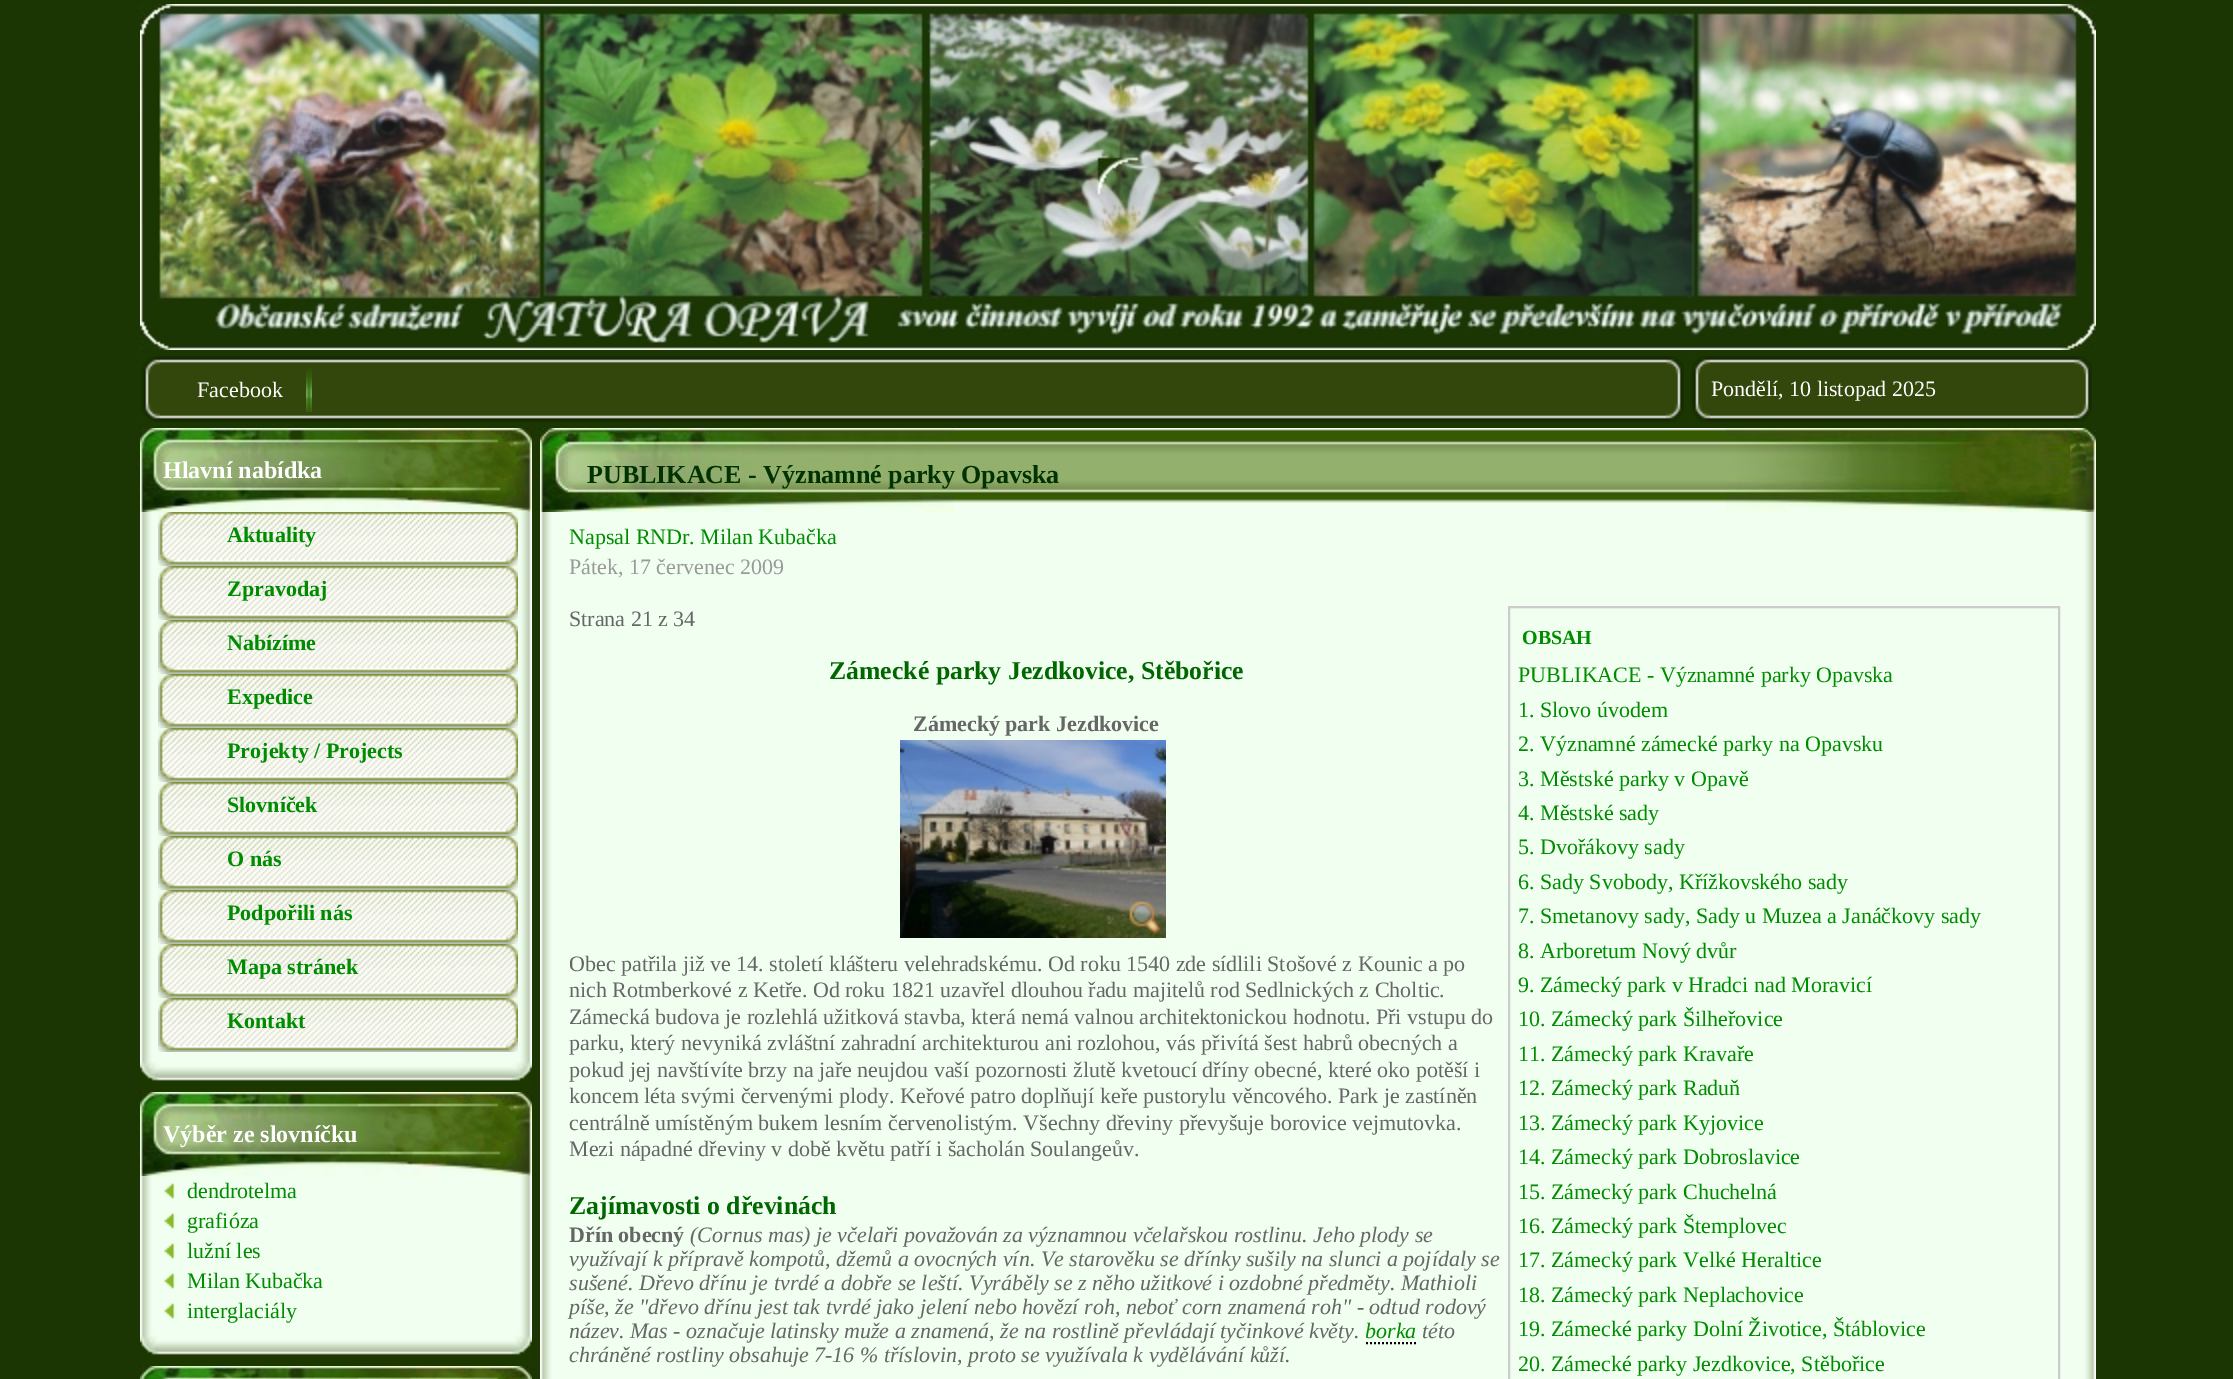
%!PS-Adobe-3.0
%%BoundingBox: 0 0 2233 1379
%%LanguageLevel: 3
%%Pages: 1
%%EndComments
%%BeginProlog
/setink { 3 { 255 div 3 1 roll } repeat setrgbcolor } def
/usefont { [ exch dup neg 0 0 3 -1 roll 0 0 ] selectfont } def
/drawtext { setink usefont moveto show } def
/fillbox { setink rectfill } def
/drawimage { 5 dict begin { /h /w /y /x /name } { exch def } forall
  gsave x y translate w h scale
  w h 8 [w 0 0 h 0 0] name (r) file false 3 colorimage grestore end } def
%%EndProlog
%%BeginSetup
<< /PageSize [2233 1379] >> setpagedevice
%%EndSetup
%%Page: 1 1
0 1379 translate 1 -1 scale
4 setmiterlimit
0 0 2233 1379 27 54 2 fillbox
(assets/img1.rgb) 140 4 1956 346 drawimage
(assets/img2.rgb) 160 356 1505 66 drawimage
(assets/img3.rgb) 140 356 20 66 drawimage
(assets/img4.rgb) 306 368 6 44 drawimage
(Facebook) 197 397 /LiberationSerif-Regular 22 255 255 255 drawtext
(assets/img5.rgb) 1665 356 19 66 drawimage
(assets/img6.rgb) 1710 356 363 66 drawimage
(assets/img3.rgb) 1690 356 20 66 drawimage
(Pondělí, 10 listopad 2025) 1711 396 /LiberationSerif-Regular 22 255 255 255 drawtext
(assets/img5.rgb) 2073 356 19 66 drawimage
(assets/img7.rgb) 140 512 392 823 drawimage
(assets/img8.rgb) 140 1061 392 31 drawimage
(assets/img9.rgb) 140 428 392 84 drawimage
(Hlavní nabídka) 163 478 /LiberationSerif-Bold 24 255 255 255 drawtext
(assets/img10.rgb) 158 512 360 54 drawimage
(Aktuality) 227 542 /LiberationSerif-Bold 22 0 140 0 drawtext
(assets/img10.rgb) 158 566 360 54 drawimage
(Zpravodaj) 227 596 /LiberationSerif-Bold 22 0 140 0 drawtext
(assets/img10.rgb) 158 620 360 54 drawimage
(Nabízíme) 227 650 /LiberationSerif-Bold 22 0 140 0 drawtext
(assets/img10.rgb) 158 674 360 54 drawimage
(Expedice) 227 704 /LiberationSerif-Bold 22 0 140 0 drawtext
(assets/img10.rgb) 158 728 360 54 drawimage
(Projekty / Projects) 227 758 /LiberationSerif-Bold 22 0 140 0 drawtext
(assets/img10.rgb) 158 782 360 54 drawimage
(Slovníček) 227 812 /LiberationSerif-Bold 22 0 140 0 drawtext
(assets/img10.rgb) 158 836 360 54 drawimage
(O nás) 227 866 /LiberationSerif-Bold 22 0 140 0 drawtext
(assets/img10.rgb) 158 890 360 54 drawimage
(Podpořili nás) 227 920 /LiberationSerif-Bold 22 0 140 0 drawtext
(assets/img10.rgb) 158 944 360 54 drawimage
(Mapa stránek) 227 974 /LiberationSerif-Bold 22 0 140 0 drawtext
(assets/img10.rgb) 158 998 360 54 drawimage
(Kontakt) 227 1028 /LiberationSerif-Bold 22 0 140 0 drawtext
(assets/img8.rgb) 140 1335 392 31 drawimage
(assets/img9.rgb) 140 1092 392 84 drawimage
(Výběr ze slovníčku) 163 1142 /LiberationSerif-Bold 24 255 255 255 drawtext
(assets/img11.rgb) 164 1183 11 16 drawimage
(dendrotelma) 187 1198 /LiberationSerif-Regular 22 0 140 0 drawtext
(assets/img11.rgb) 164 1213 11 16 drawimage
(grafióza) 187 1228 /LiberationSerif-Regular 22 0 140 0 drawtext
(assets/img11.rgb) 164 1243 11 16 drawimage
(lužní les) 187 1258 /LiberationSerif-Regular 22 0 140 0 drawtext
(assets/img11.rgb) 164 1273 11 16 drawimage
(Milan Kubačka) 187 1288 /LiberationSerif-Regular 22 0 140 0 drawtext
(assets/img11.rgb) 164 1303 11 16 drawimage
(interglaciály) 187 1318 /LiberationSerif-Regular 22 0 140 0 drawtext
(assets/img12.rgb) 140 1366 392 13 drawimage
568 503 1502 876 240 255 240 fillbox
(assets/img13.rgb) 954 428 772 75 drawimage
(assets/img14.rgb) 540 512 28 867 drawimage
(assets/img15.rgb) 540 428 28 84 drawimage
(assets/img16.rgb) 1726 428 344 84 drawimage
(assets/img17.rgb) 568 428 386 84 drawimage
(PUBLIKACE - Významné parky Opavska) 587 483 /LiberationSerif-Bold 26 0 51 0 drawtext
(Napsal RNDr. Milan Kubačka) 569 544 /LiberationSerif-Regular 22 0 140 0 drawtext
(Pátek, 17 červenec 2009) 569 574 /LiberationSerif-Regular 22 153 153 153 drawtext
(Strana 21 z 34) 569 626 /LiberationSerif-Regular 22 102 102 102 drawtext
(Zámecké parky Jezdkovice, Stěbořice) 829 679 /LiberationSerif-Bold 25.75 0 102 0 drawtext
204 204 204 setink
2 setlinewidth
1509 607 550 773 rectstroke
(OBSAH) 1522 644 /LiberationSerif-Bold 20 0 140 0 drawtext
(PUBLIKACE - Významné parky Opavska) 1518 682 /LiberationSerif-Regular 22 0 140 0 drawtext
(1. Slovo úvodem) 1518 717 /LiberationSerif-Regular 22 0 140 0 drawtext
(2. Významné zámecké parky na Opavsku) 1518 751 /LiberationSerif-Regular 22 0 140 0 drawtext
(3. Městské parky v Opavě) 1518 786 /LiberationSerif-Regular 22 0 140 0 drawtext
(4. Městské sady) 1518 820 /LiberationSerif-Regular 22 0 140 0 drawtext
(5. Dvořákovy sady) 1518 854 /LiberationSerif-Regular 22 0 140 0 drawtext
(6. Sady Svobody, Křížkovského sady) 1518 889 /LiberationSerif-Regular 22 0 140 0 drawtext
(7. Smetanovy sady, Sady u Muzea a Janáčkovy sady) 1518 923 /LiberationSerif-Regular 22 0 140 0 drawtext
(8. Arboretum Nový dvůr) 1518 958 /LiberationSerif-Regular 22 0 140 0 drawtext
(9. Zámecký park v Hradci nad Moravicí) 1518 992 /LiberationSerif-Regular 22 0 140 0 drawtext
(10. Zámecký park Šilheřovice) 1518 1026 /LiberationSerif-Regular 22 0 140 0 drawtext
(11. Zámecký park Kravaře) 1518 1061 /LiberationSerif-Regular 22 0 140 0 drawtext
(12. Zámecký park Raduň) 1518 1095 /LiberationSerif-Regular 22 0 140 0 drawtext
(13. Zámecký park Kyjovice) 1518 1130 /LiberationSerif-Regular 22 0 140 0 drawtext
(14. Zámecký park Dobroslavice) 1518 1164 /LiberationSerif-Regular 22 0 140 0 drawtext
(15. Zámecký park Chuchelná) 1518 1199 /LiberationSerif-Regular 22 0 140 0 drawtext
(16. Zámecký park Štemplovec) 1518 1233 /LiberationSerif-Regular 22 0 140 0 drawtext
(17. Zámecký park Velké Heraltice) 1518 1267 /LiberationSerif-Regular 22 0 140 0 drawtext
(18. Zámecký park Neplachovice) 1518 1302 /LiberationSerif-Regular 22 0 140 0 drawtext
(19. Zámecké parky Dolní Životice, Štáblovice) 1518 1336 /LiberationSerif-Regular 22 0 140 0 drawtext
(20. Zámecké parky Jezdkovice, Stěbořice) 1518 1371 /LiberationSerif-Regular 22 0 140 0 drawtext
(Zámecký park Jezdkovice) 913 731 /LiberationSerif-Bold 22 102 102 102 drawtext
(assets/img18.rgb) 900 740 266 198 drawimage
(assets/img19.rgb) 1129 901 32 34 drawimage
(Obec patřila již ve 14. století klášteru velehradskému. Od roku 1540 zde sídlili Stošové z Kounic a po) 569 971 /LiberationSerif-Regular 22 102 102 102 drawtext
(nich Rotmberkové z Ketře. Od roku 1821 uzavřel dlouhou řadu majitelů rod Sedlnických z Choltic.) 569 997 /LiberationSerif-Regular 22 102 102 102 drawtext
(Zámecká budova je rozlehlá užitková stavba, která nemá valnou architektonickou hodnotu. Při vstupu do) 569 1024 /LiberationSerif-Regular 22 102 102 102 drawtext
(parku, který nevyniká zvláštní zahradní architekturou ani rozlohou, vás přivítá šest habrů obecných a) 569 1050 /LiberationSerif-Regular 22 102 102 102 drawtext
(pokud jej navštívíte brzy na jaře neujdou vaší pozornosti žlutě kvetoucí dříny obecné, které oko potěší i) 569 1077 /LiberationSerif-Regular 22 102 102 102 drawtext
(koncem léta svými červenými plody. Keřové patro doplňují keře pustorylu věncového. Park je zastíněn) 569 1103 /LiberationSerif-Regular 22 102 102 102 drawtext
(centrálně umístěným bukem lesním červenolistým. Všechny dřeviny převyšuje borovice vejmutovka.) 569 1130 /LiberationSerif-Regular 22 102 102 102 drawtext
(Mezi nápadné dřeviny v době květu patří i šacholán Soulangeův.) 569 1156 /LiberationSerif-Regular 22 102 102 102 drawtext
(Zajímavosti o dřevinách) 569 1214 /LiberationSerif-Bold 25.75 0 102 0 drawtext
(Dřín obecný) 569 1242 /LiberationSerif-Bold 22 102 102 102 drawtext
(\(Cornus mas\) je včelaři považován za významnou včelařskou rostlinu. Jeho plody se) 690 1242 /LiberationSerif-Italic 22 102 102 102 drawtext
(využívají k přípravě kompotů, džemů a ovocných vín. Ve starověku se dřínky sušily na slunci a pojídaly se) 569 1266 /LiberationSerif-Italic 22 102 102 102 drawtext
(sušené. Dřevo dřínu je tvrdé a dobře se leští. Vyráběly se z něho užitkové i ozdobné předměty. Mathioli) 569 1290 /LiberationSerif-Italic 22 102 102 102 drawtext
(píše, že "dřevo dřínu jest tak tvrdé jako jelení nebo hovězí roh, neboť corn znamená roh" - odtud rodový) 569 1314 /LiberationSerif-Italic 22 102 102 102 drawtext
(název. Mas - označuje latinsky muže a znamená, že na rostlině převládají tyčinkové květy.) 569 1338 /LiberationSerif-Italic 22 102 102 102 drawtext
(borka) 1365 1338 /LiberationSerif-Italic 22 0 140 0 drawtext
0 0 0 setink
[2 2] 0 setdash
1366 1343 moveto 1416 1343 lineto stroke
(této) 1422 1338 /LiberationSerif-Italic 22 102 102 102 drawtext
(chráněné rostliny obsahuje 7-16 % tříslovin, proto se využívala k vydělávání kůží.) 569 1362 /LiberationSerif-Italic 22 102 102 102 drawtext
(assets/img20.rgb) 2070 512 26 867 drawimage
(assets/img21.rgb) 2070 428 26 84 drawimage
showpage
%%EOF
